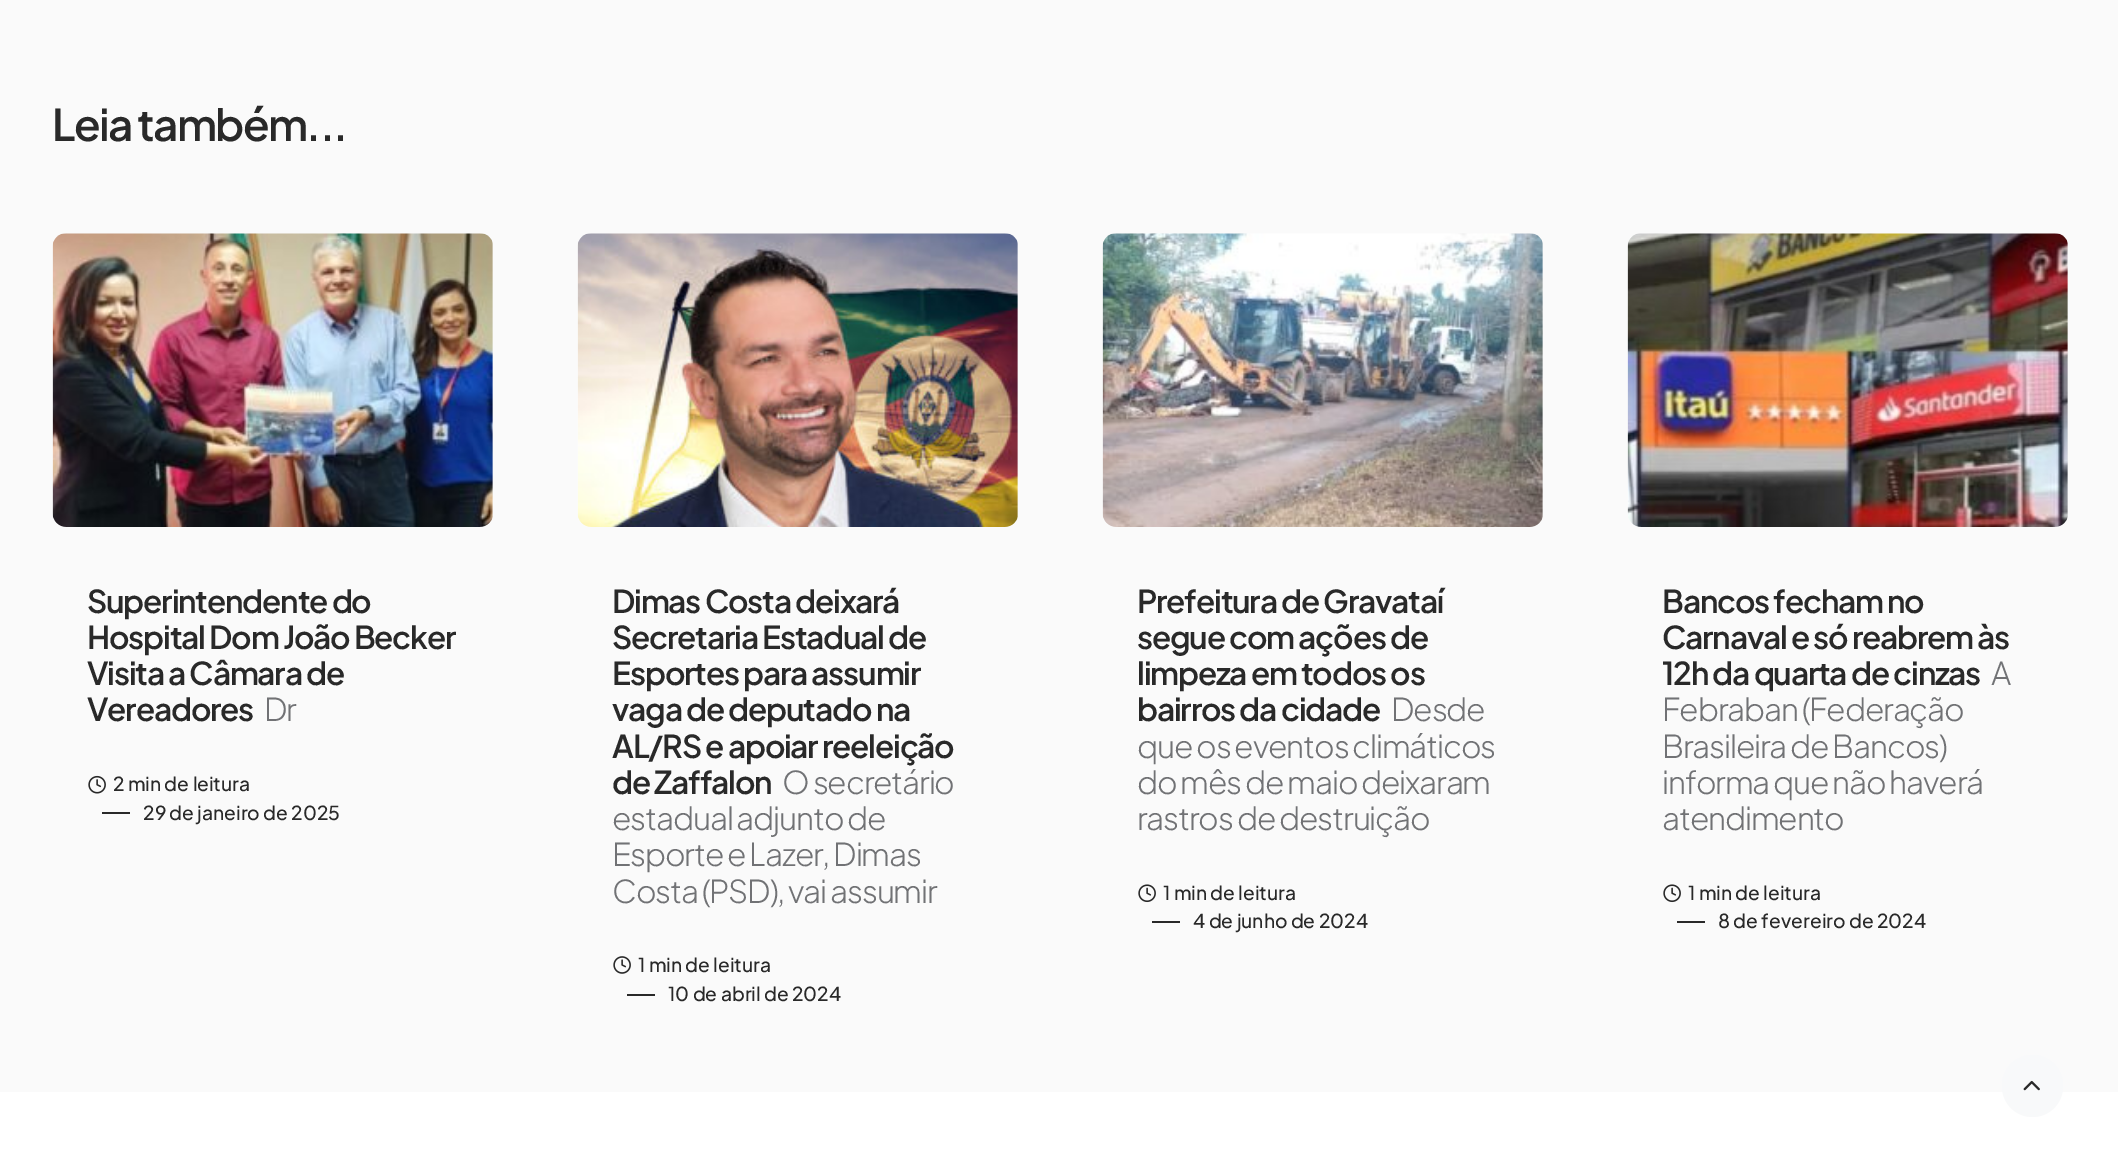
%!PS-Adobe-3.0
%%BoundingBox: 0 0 2118 1171
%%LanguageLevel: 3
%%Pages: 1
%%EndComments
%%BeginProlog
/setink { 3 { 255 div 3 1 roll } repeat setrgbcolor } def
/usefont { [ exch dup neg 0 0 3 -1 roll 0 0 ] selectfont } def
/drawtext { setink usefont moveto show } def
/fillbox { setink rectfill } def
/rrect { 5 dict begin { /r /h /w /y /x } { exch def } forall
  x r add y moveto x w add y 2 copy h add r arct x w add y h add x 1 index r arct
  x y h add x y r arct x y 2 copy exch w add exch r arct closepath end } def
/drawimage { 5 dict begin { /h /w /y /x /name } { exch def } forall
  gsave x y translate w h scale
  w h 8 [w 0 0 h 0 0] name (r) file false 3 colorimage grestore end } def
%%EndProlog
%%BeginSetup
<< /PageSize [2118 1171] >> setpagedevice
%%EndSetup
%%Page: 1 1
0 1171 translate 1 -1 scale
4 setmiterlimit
0 0 2118 1171 250 250 250 fillbox
/PlusJakartaSans-SemiBold 43.75 usefont
41 41 41 setink
52 141 moveto -1.75 0 (Leia também...) ashow
(assets/img1.rgb) 52 233 441 294 drawimage
/PlusJakartaSans-SemiBold 31.5 usefont
87 613 moveto -1.2 0 (Superintendente do) ashow
87 649 moveto -1.2 0 (Hospital Dom João Becker) ashow
87 685 moveto -1.2 0 (Visita a Câmara de) ashow
87 721 moveto -1.2 0 (Vereadores) ashow
/PlusJakartaSans-Light 31.5 usefont
113 114 117 setink
264 721 moveto -1.2 0 (Dr) ashow
(assets/img2.rgb) 88 775 18 19 drawimage
(2 min de leitura) 113 791 /PlusJakartaSans-Medium 19.25 41 41 41 drawtext
102 812 28 2 41 41 41 fillbox
(29 de janeiro de 2025) 143 820 /PlusJakartaSans-Medium 19.25 41 41 41 drawtext
(assets/img3.rgb) 577 233 441 294 drawimage
/PlusJakartaSans-SemiBold 31.5 usefont
612 613 moveto -1.2 0 (Dimas Costa deixará) ashow
612 649 moveto -1.2 0 (Secretaria Estadual de) ashow
612 685 moveto -1.2 0 (Esportes para assumir) ashow
612 721 moveto -1.2 0 (vaga de deputado na) ashow
612 758 moveto -1.2 0 (AL/RS e apoiar reeleição) ashow
612 794 moveto -1.2 0 (de Zaffalon) ashow
/PlusJakartaSans-Light 31.5 usefont
113 114 117 setink
782 794 moveto -1.2 0 (O secretário) ashow
612 830 moveto -1.2 0 (estadual adjunto de) ashow
612 866 moveto -1.2 0 (Esporte e Lazer, Dimas) ashow
612 903 moveto -1.2 0 (Costa \(PSD\), vai assumir) ashow
(assets/img4.rgb) 613 956 18 18 drawimage
(1 min de leitura) 638 972 /PlusJakartaSans-Medium 19.25 41 41 41 drawtext
627 994 28 2 41 41 41 fillbox
(10 de abril de 2024) 668 1001 /PlusJakartaSans-Medium 19.25 41 41 41 drawtext
(assets/img5.rgb) 1102 233 441 294 drawimage
/PlusJakartaSans-SemiBold 31.5 usefont
1137 613 moveto -1.2 0 (Prefeitura de Gravataí) ashow
1137 649 moveto -1.2 0 (segue com ações de) ashow
1137 685 moveto -1.2 0 (limpeza em todos os) ashow
1137 721 moveto -1.2 0 (bairros da cidade) ashow
/PlusJakartaSans-Light 31.5 usefont
113 114 117 setink
1391 721 moveto -1.2 0 (Desde) ashow
1137 758 moveto -1.2 0 (que os eventos climáticos) ashow
1137 794 moveto -1.2 0 (do mês de maio deixaram) ashow
1137 830 moveto -1.2 0 (rastros de destruição) ashow
(assets/img6.rgb) 1138 884 18 19 drawimage
(1 min de leitura) 1163 900 /PlusJakartaSans-Medium 19.25 41 41 41 drawtext
1152 921 28 2 41 41 41 fillbox
(4 de junho de 2024) 1193 928 /PlusJakartaSans-Medium 19.25 41 41 41 drawtext
(assets/img7.rgb) 1627 233 441 294 drawimage
/PlusJakartaSans-SemiBold 31.5 usefont
1662 613 moveto -1.2 0 (Bancos fecham no) ashow
1662 649 moveto -1.2 0 (Carnaval e só reabrem às) ashow
1662 685 moveto -1.2 0 (12h da quarta de cinzas) ashow
/PlusJakartaSans-Light 31.5 usefont
113 114 117 setink
1991 685 moveto -1.2 0 (A) ashow
1662 721 moveto -1.2 0 (Febraban \(Federação) ashow
1662 758 moveto -1.2 0 (Brasileira de Bancos\)) ashow
1662 794 moveto -1.2 0 (informa que não haverá) ashow
1662 830 moveto -1.2 0 (atendimento) ashow
(assets/img6.rgb) 1663 884 18 19 drawimage
(1 min de leitura) 1688 900 /PlusJakartaSans-Medium 19.25 41 41 41 drawtext
1677 921 28 2 41 41 41 fillbox
(8 de fevereiro de 2024) 1718 928 /PlusJakartaSans-Medium 19.25 41 41 41 drawtext
0 1092 2118 79 255 255 255 fillbox
248 249 250 setink
2002 1055 61 62 30.5 rrect fill
(assets/img8.rgb) 2023 1080 17 11 drawimage
showpage
%%EOF
